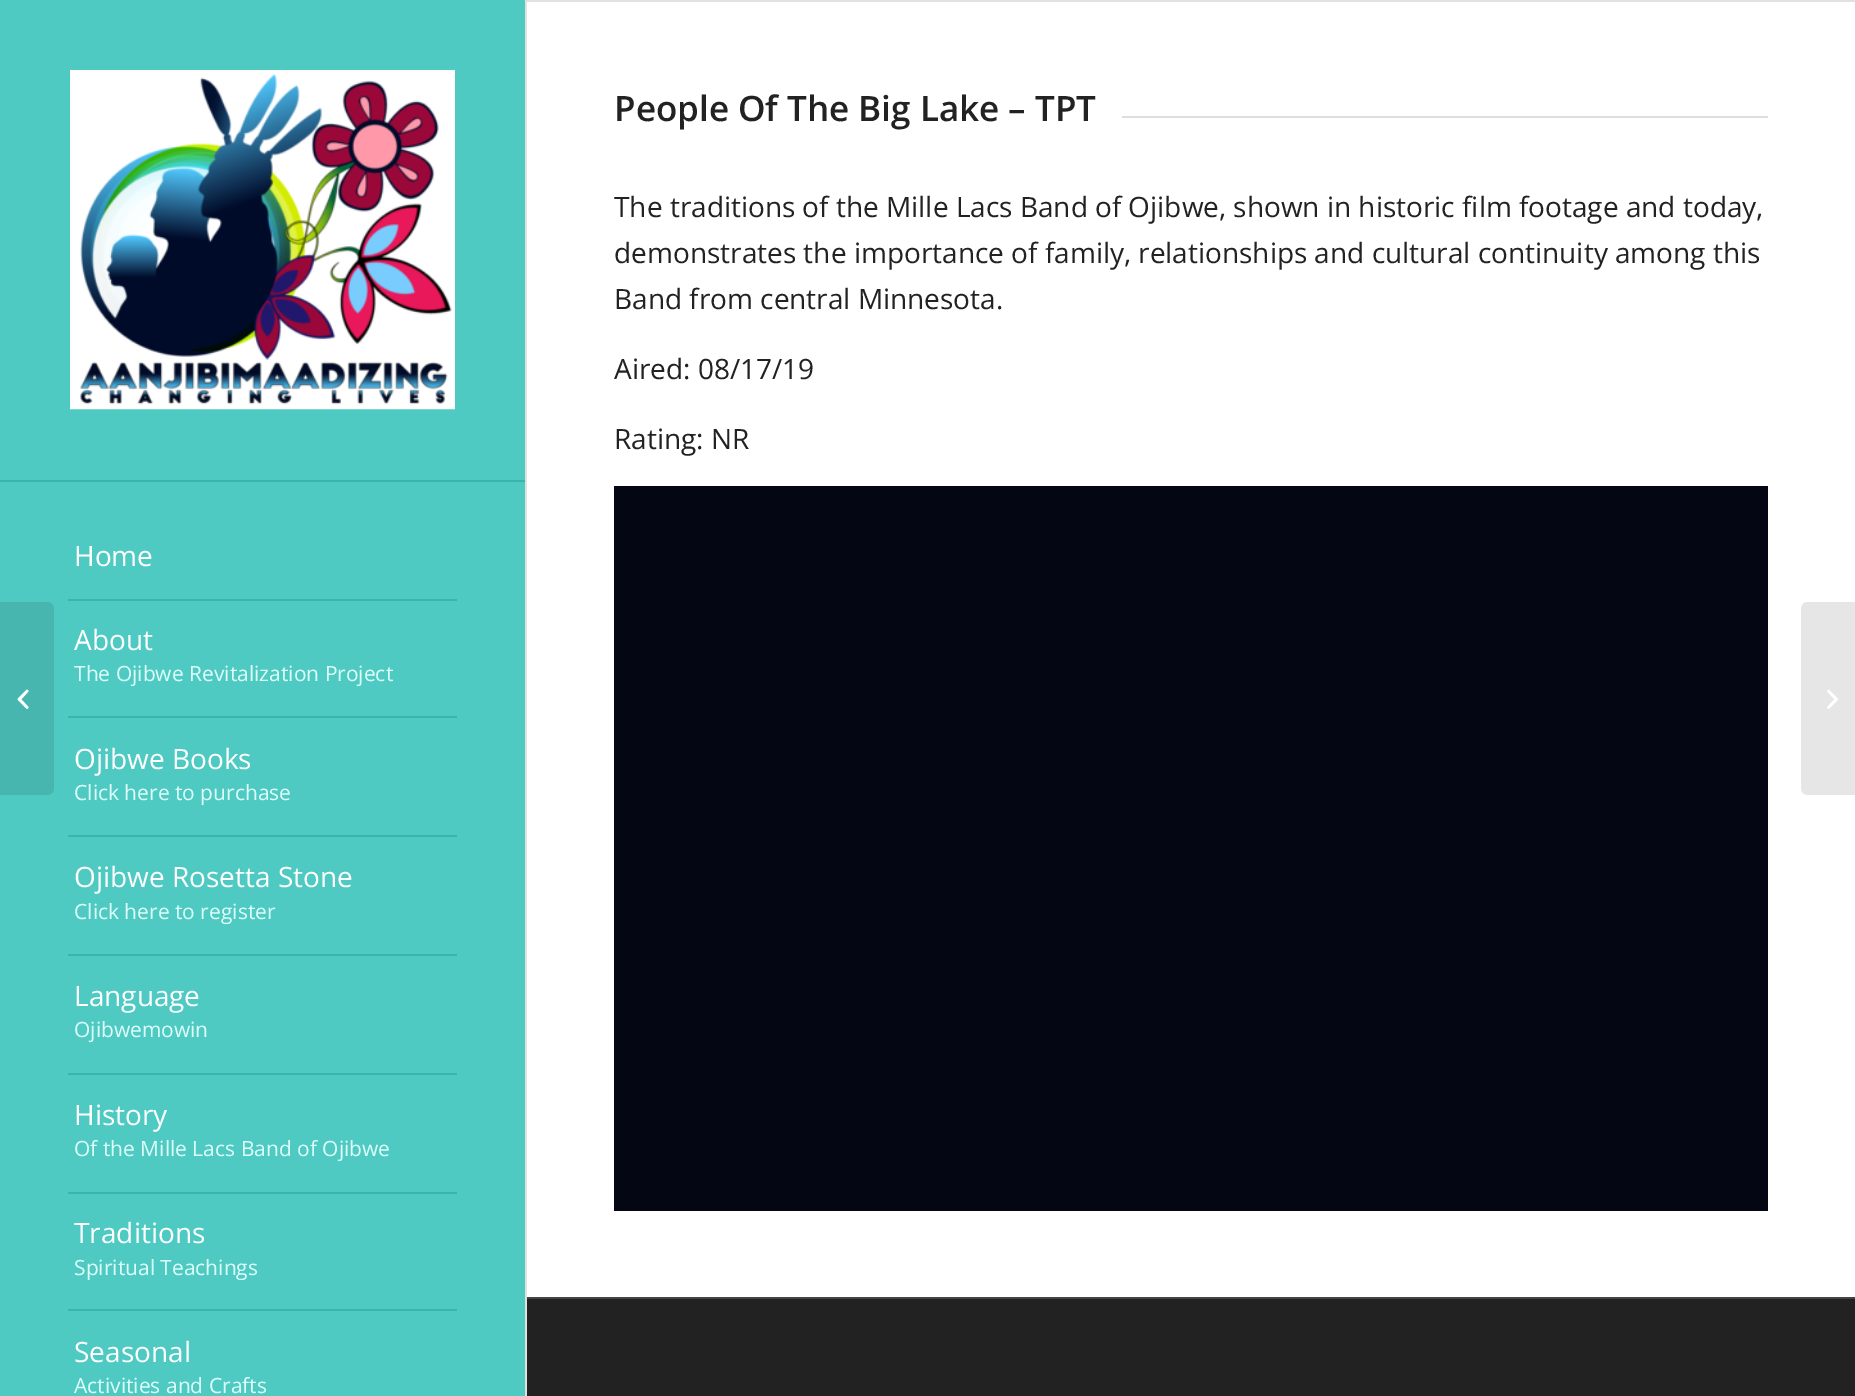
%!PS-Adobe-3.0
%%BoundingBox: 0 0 1855 1396
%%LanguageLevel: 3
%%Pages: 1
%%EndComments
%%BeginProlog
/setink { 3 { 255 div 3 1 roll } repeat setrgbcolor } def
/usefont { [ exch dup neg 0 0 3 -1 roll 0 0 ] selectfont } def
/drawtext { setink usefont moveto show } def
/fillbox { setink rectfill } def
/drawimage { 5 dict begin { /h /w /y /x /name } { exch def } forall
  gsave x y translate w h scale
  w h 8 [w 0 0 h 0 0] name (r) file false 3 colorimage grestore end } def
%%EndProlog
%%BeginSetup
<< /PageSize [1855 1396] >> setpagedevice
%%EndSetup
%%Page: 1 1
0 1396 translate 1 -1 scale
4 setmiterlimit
0 0 1855 1396 78 202 194 fillbox
525 0 2 1396 225 225 225 fillbox
527 2 1328 1295 255 255 255 fillbox
527 0 1328 2 225 225 225 fillbox
(People Of The Big Lake – TPT) 614 121 /OpenSans-SemiBold 35 34 34 34 drawtext
1122 116 646 2 222 222 222 fillbox
(The traditions of the Mille Lacs Band of Ojibwe, shown in historic film footage and today,) 614 217 /OpenSans-Regular 28 34 34 34 drawtext
(demonstrates the importance of family, relationships and cultural continuity among this) 614 263 /OpenSans-Regular 28 34 34 34 drawtext
(Band from central Minnesota.) 614 309 /OpenSans-Regular 28 34 34 34 drawtext
(Aired: 08/17/19) 614 379 /OpenSans-Regular 28 34 34 34 drawtext
(Rating: NR) 614 449 /OpenSans-Regular 28 34 34 34 drawtext
614 486 1154 725 4 6 19 fillbox
527 1299 1328 97 34 34 34 fillbox
527 1297 1328 2 68 68 68 fillbox
70 182 175 setink
0 602 moveto 47 602 lineto 51 602 54 605 54 609 curveto 54 788 lineto 54 792 51 795 47 795 curveto 0 795 lineto closepath fill
(assets/img1.rgb) 17 689 12 20 drawimage
0 480 525 2 56 181 173 fillbox
(assets/img2.rgb) 70 70 385 340 drawimage
68 599 389 2 56 181 173 fillbox
(Home) 74 566 /OpenSans-Regular 28 255 255 255 drawtext
68 716 389 2 56 181 173 fillbox
(About) 74 650 /OpenSans-Regular 28 255 255 255 drawtext
(The Ojibwe Revitalization Project) 74 681 /OpenSans-Regular 21 222 255 252 drawtext
68 835 389 2 56 181 173 fillbox
(Ojibwe Books) 74 769 /OpenSans-Regular 28 255 255 255 drawtext
(Click here to purchase) 74 800 /OpenSans-Regular 21 222 255 252 drawtext
68 954 389 2 56 181 173 fillbox
(Ojibwe Rosetta Stone) 74 887 /OpenSans-Regular 28 255 255 255 drawtext
(Click here to register) 74 919 /OpenSans-Regular 21 222 255 252 drawtext
68 1073 389 2 56 181 173 fillbox
(Language) 74 1006 /OpenSans-Regular 28 255 255 255 drawtext
(Ojibwemowin) 74 1037 /OpenSans-Regular 21 222 255 252 drawtext
68 1192 389 2 56 181 173 fillbox
(History) 74 1125 /OpenSans-Regular 28 255 255 255 drawtext
(Of the Mille Lacs Band of Ojibwe) 74 1156 /OpenSans-Regular 21 222 255 252 drawtext
68 1309 389 2 56 181 173 fillbox
(Traditions) 74 1243 /OpenSans-Regular 28 255 255 255 drawtext
(Spiritual Teachings) 74 1275 /OpenSans-Regular 21 222 255 252 drawtext
(Seasonal) 74 1362 /OpenSans-Regular 28 255 255 255 drawtext
(Activities and Crafts) 74 1393 /OpenSans-Regular 21 222 255 252 drawtext
230 230 230 setink
1808 602 moveto 1855 602 lineto 1855 795 lineto 1808 795 lineto 1804 795 1801 792 1801 788 curveto 1801 609 lineto 1801 605 1804 602 1808 602 curveto closepath fill
(assets/img3.rgb) 1827 689 11 20 drawimage
showpage
%%EOF
